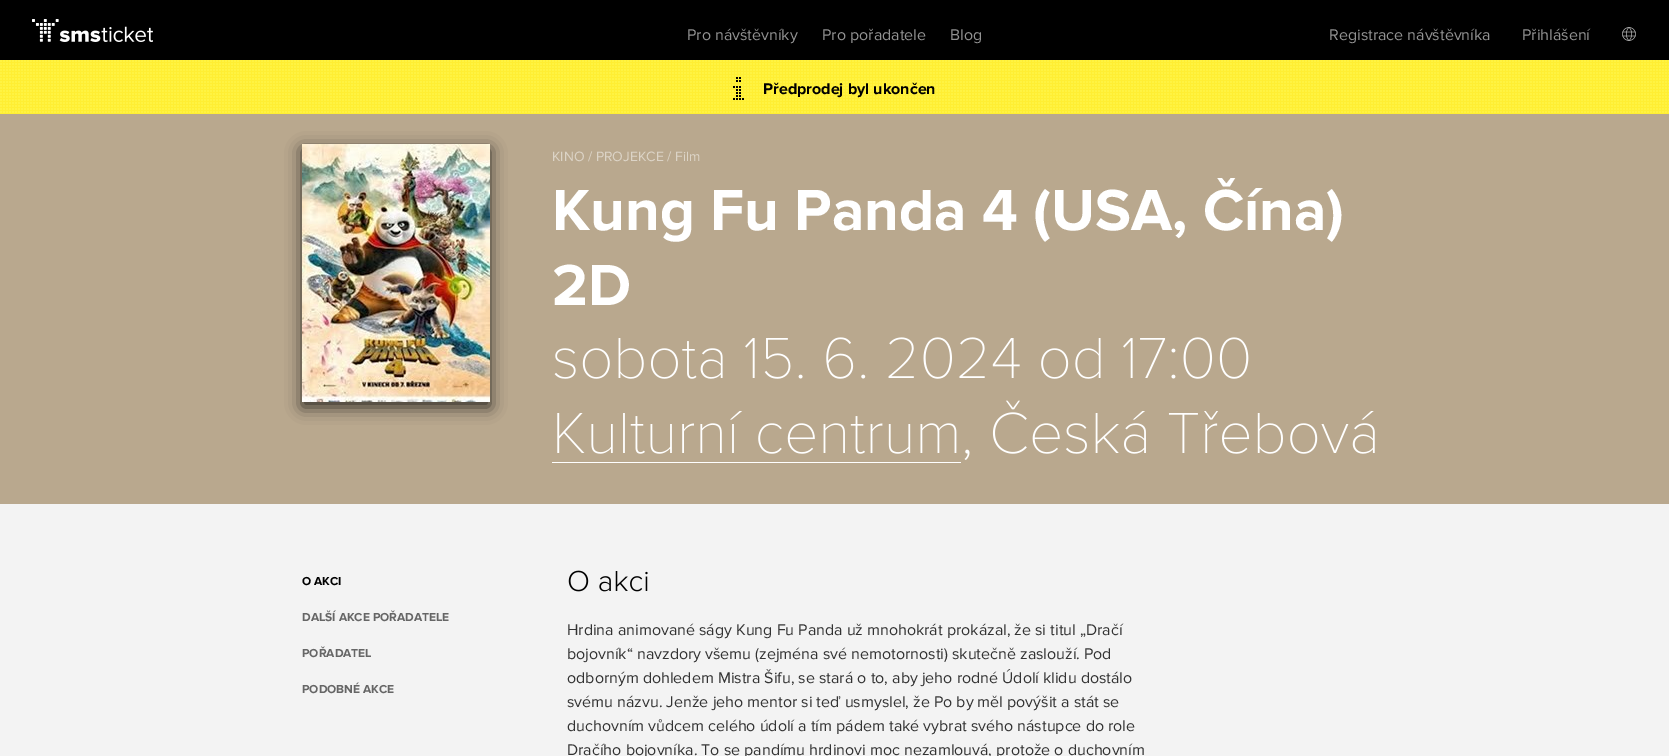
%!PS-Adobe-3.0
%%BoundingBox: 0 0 1669 756
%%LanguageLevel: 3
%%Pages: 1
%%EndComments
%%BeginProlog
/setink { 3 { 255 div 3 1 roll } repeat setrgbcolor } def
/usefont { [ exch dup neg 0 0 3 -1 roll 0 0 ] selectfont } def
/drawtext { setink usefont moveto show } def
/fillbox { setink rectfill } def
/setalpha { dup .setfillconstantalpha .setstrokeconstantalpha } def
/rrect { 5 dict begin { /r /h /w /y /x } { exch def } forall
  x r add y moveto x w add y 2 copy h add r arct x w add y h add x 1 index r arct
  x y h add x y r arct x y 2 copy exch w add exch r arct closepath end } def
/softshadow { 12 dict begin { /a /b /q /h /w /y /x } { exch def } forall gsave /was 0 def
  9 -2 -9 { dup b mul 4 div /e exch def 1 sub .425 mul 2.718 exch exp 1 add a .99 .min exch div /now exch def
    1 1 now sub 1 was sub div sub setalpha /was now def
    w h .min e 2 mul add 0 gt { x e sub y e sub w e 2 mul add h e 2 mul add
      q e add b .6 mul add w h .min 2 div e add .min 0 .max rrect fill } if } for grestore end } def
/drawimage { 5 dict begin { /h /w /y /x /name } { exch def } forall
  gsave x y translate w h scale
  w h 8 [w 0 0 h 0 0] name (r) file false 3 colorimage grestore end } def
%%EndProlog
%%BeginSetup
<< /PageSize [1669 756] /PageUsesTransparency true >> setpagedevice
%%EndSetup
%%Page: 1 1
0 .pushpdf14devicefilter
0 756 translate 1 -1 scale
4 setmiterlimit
0 0 1669 756 243 243 243 fillbox
0 0 1669 60 0 0 0 fillbox
(assets/img1.rgb) 32 19 121 23 drawimage
(Pro návštěvníky) 687 40 /ProximaNova-Regular 16 146 146 146 drawtext
(Pro pořadatele) 822 40 /ProximaNova-Regular 16 146 146 146 drawtext
(Blog) 950 40 /ProximaNova-Regular 16 146 146 146 drawtext
(Registrace návštěvníka) 1329 40 /ProximaNova-Regular 16 146 146 146 drawtext
(Přihlášení) 1522 40 /ProximaNova-Regular 16 146 146 146 drawtext
(assets/img2.rgb) 1622 27 14 14 drawimage
(assets/img3.rgb) 0 60 1669 54 drawimage
(assets/img4.rgb) 733 77 11 23 drawimage
(Předprodej byl ukončen) 763 94 /ProximaNova-Bold 16 0 0 0 drawtext
0 114 1669 390 185 168 142 fillbox
0 0 0 setink
302 149 188 258 0 8 0.74 softshadow
(assets/img5.rgb) 302 144 188 258 drawimage
(KINO / PROJEKCE / Film) 552 161 /ProximaNova-Regular 14 220 212 199 drawtext
(Kung Fu Panda 4 \(USA, Čína\)) 552 230 /ProximaNova-Bold 60 255 255 255 drawtext
(2D) 552 305 /ProximaNova-Bold 60 255 255 255 drawtext
(assets/img6.rgb) 554 337 695 42 drawimage
(assets/img7.rgb) 557 411 400 43 drawimage
(assets/img8.rgb) 964 400 411 60 drawimage
552 462 409 1 255 255 255 fillbox
(O AKCI) 302 585 /ProximaNova-Bold 12 0 0 0 drawtext
(DALŠÍ AKCE POŘADATELE) 302 621 /ProximaNova-Bold 12 102 102 102 drawtext
(POŘADATEL) 302 657 /ProximaNova-Bold 12 102 102 102 drawtext
(PODOBNÉ AKCE) 302 693 /ProximaNova-Bold 12 102 102 102 drawtext
(assets/img9.rgb) 568 570 80 22 drawimage
(Hrdina animované ságy Kung Fu Panda už mnohokrát prokázal, že si titul „Dračí) 567 635 /ProximaNova-Regular 16 51 51 51 drawtext
(bojovník“ navzdory všemu \(zejména své nemotornosti\) skutečně zaslouží. Pod) 567 659 /ProximaNova-Regular 16 51 51 51 drawtext
(odborným dohledem Mistra Šifu, se stará o to, aby jeho rodné Údolí klidu dostálo) 567 683 /ProximaNova-Regular 16 51 51 51 drawtext
(svému názvu. Jenže jeho mentor si teď usmyslel, že Po by měl povýšit a stát se) 567 707 /ProximaNova-Regular 16 51 51 51 drawtext
(duchovním vůdcem celého údolí a tím pádem také vybrat svého nástupce do role) 567 731 /ProximaNova-Regular 16 51 51 51 drawtext
(Dračího bojovníka. To se pandímu hrdinovi moc nezamlouvá, protože o duchovním) 567 755 /ProximaNova-Regular 16 51 51 51 drawtext
.poppdf14devicefilter showpage
%%EOF
